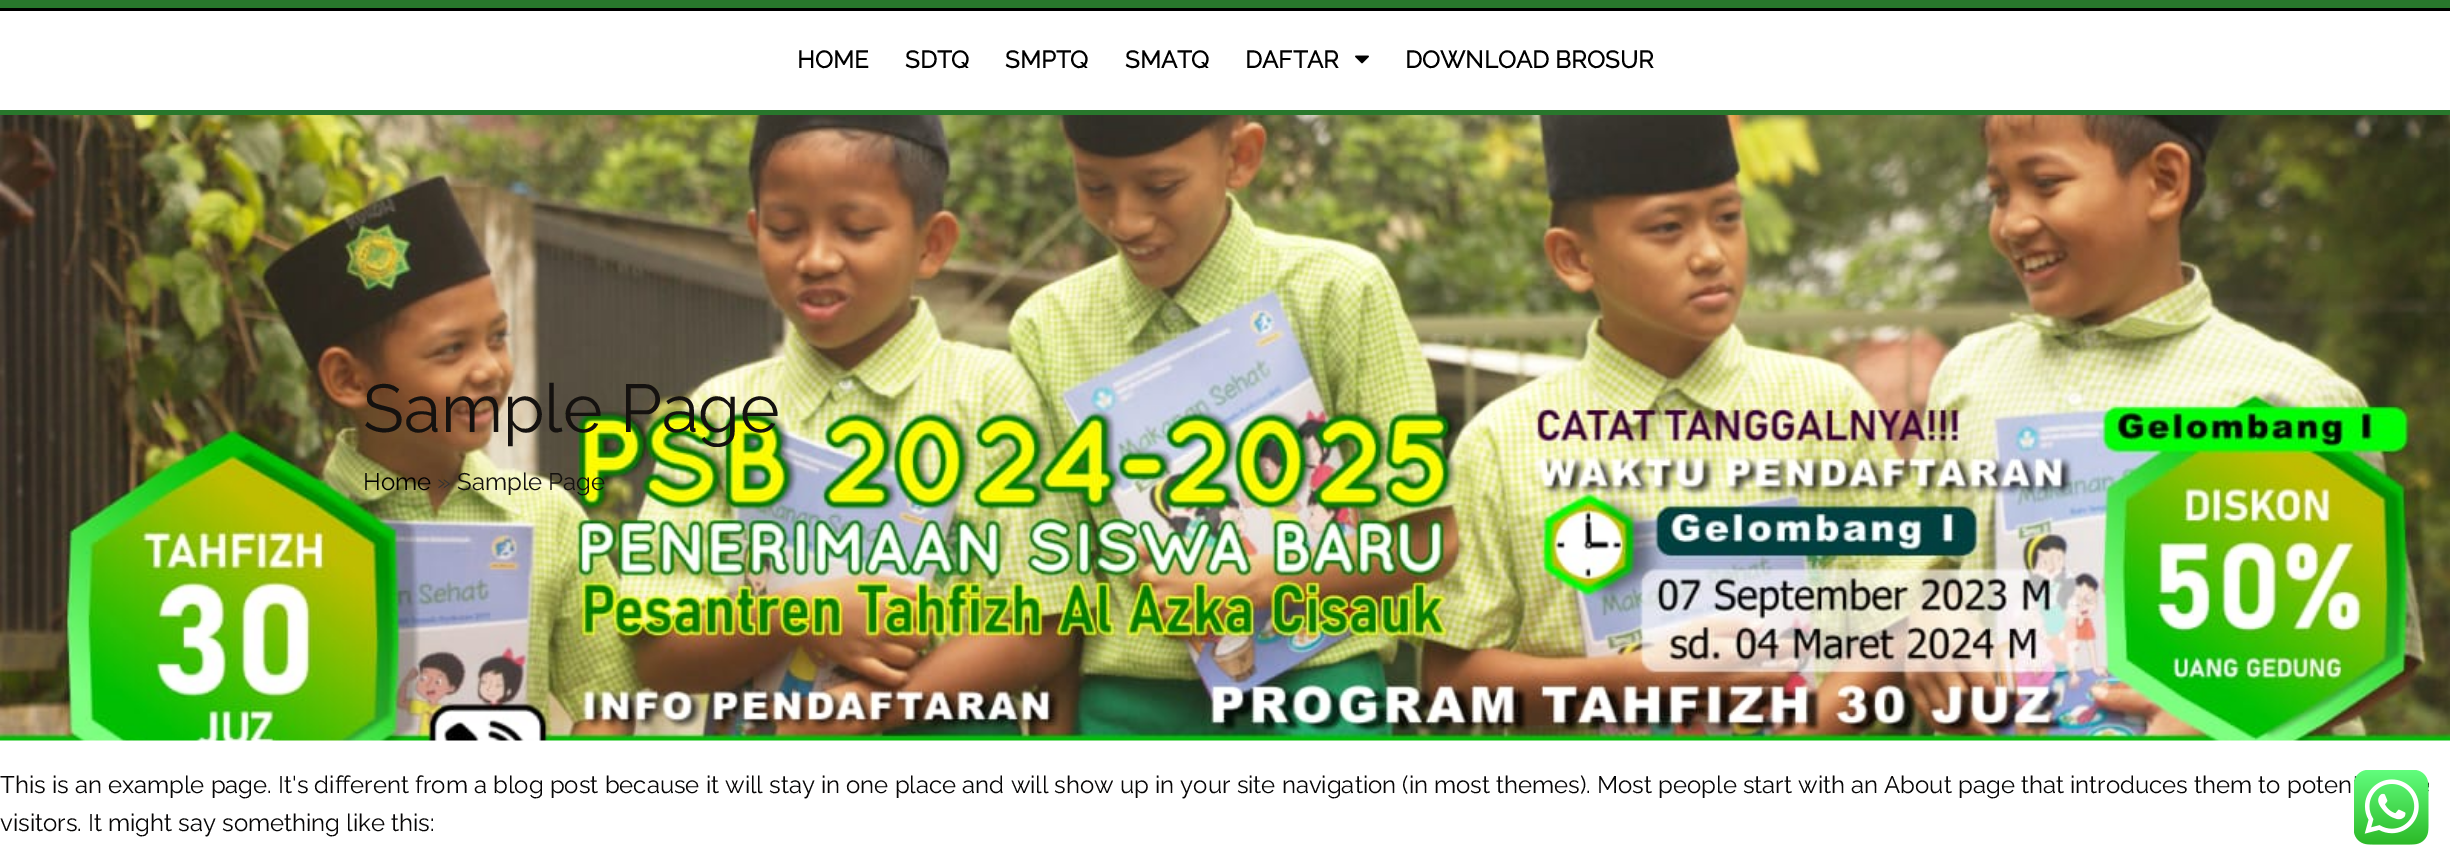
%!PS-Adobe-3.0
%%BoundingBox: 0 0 2450 867
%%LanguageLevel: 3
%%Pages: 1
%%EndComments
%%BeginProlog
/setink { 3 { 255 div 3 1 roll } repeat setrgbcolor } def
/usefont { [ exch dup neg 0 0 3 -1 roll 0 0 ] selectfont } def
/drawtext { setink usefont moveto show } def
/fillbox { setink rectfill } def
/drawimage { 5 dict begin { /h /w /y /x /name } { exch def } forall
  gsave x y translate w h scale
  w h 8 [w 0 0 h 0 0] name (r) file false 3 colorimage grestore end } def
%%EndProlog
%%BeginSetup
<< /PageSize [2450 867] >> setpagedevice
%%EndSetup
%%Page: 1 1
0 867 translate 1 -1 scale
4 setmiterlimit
0 0 2450 867 255 255 255 fillbox
0 0 2450 8 40 119 44 fillbox
0 8 2450 3 0 0 0 fillbox
0 110 2450 5 40 119 44 fillbox
(HOME) 797 68 /Raleway-Bold 24 0 0 0 drawtext
(SDTQ) 905 68 /Raleway-Bold 24 0 0 0 drawtext
(SMPTQ) 1005 68 /Raleway-Bold 24 0 0 0 drawtext
(SMATQ) 1125 68 /Raleway-Bold 24 0 0 0 drawtext
(DAFTAR) 1245 68 /Raleway-Bold 24 0 0 0 drawtext
(assets/img1.rgb) 1355 55 14 9 drawimage
(DOWNLOAD BROSUR) 1405 68 /Raleway-Bold 24 0 0 0 drawtext
(assets/img2.rgb) 0 115 2450 626 drawimage
(Sample Page) 363 432 /Raleway-Thin 67.5 20 17 15 drawtext
(Home) 363 490 /Raleway-Thin 24 0 0 0 drawtext
(») 437 490 /Raleway-Thin 24 51 51 51 drawtext
(Sample Page) 457 490 /Raleway-Thin 24 20 17 15 drawtext
(This is an example page. It's different from a blog post because it will stay in one place and will show up in your site navigation \(in most themes\). Most people start with an About page that introduces them to poten) 0 793 /Raleway-Thin 24 7 6 6 drawtext
(visitors. It might say something like this:) 0 831 /Raleway-Thin 24 7 6 6 drawtext
(assets/img3.rgb) 2354 770 75 75 drawimage
showpage
%%EOF
